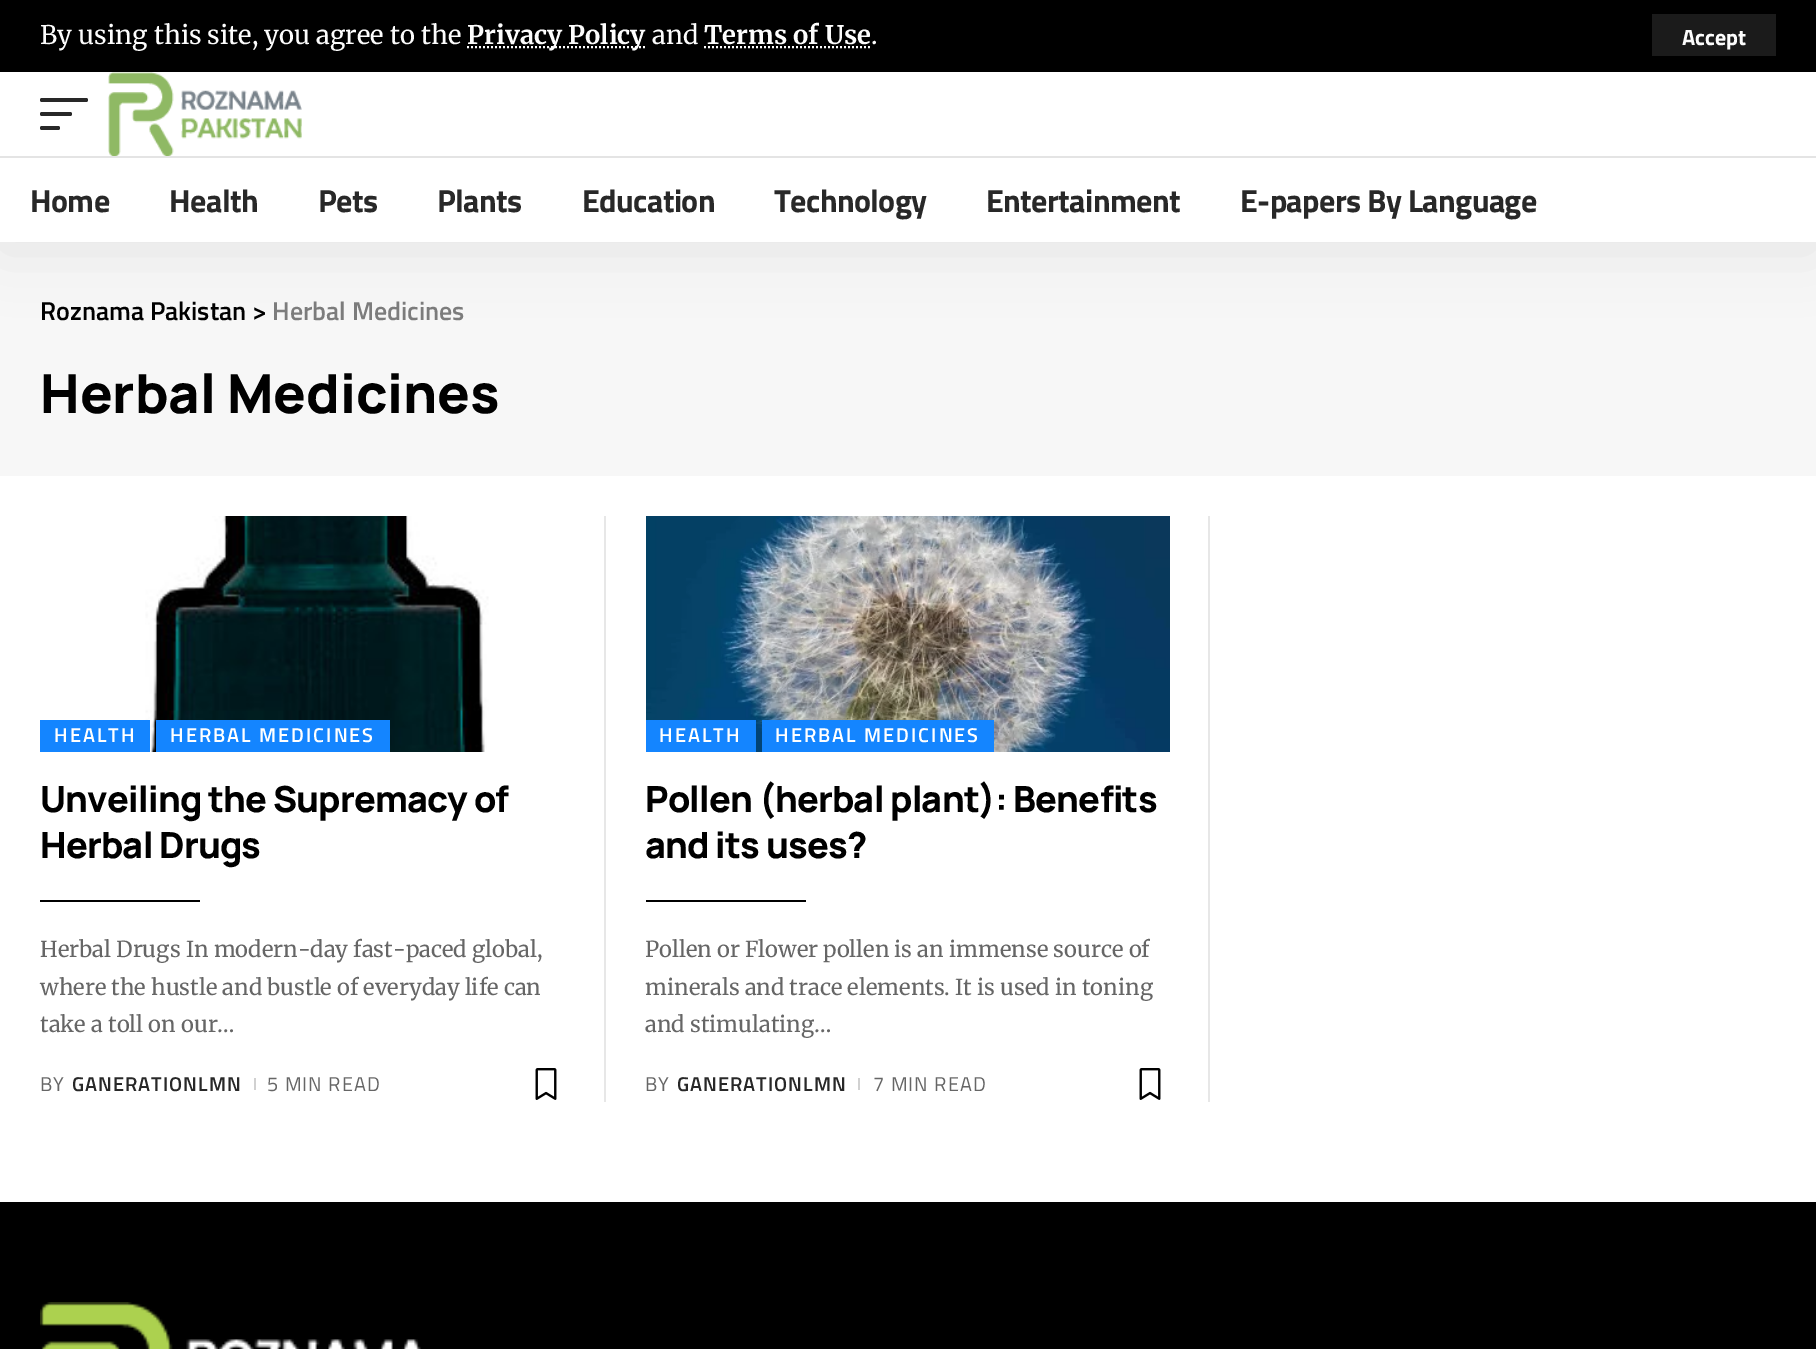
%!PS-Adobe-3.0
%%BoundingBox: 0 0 1816 1349
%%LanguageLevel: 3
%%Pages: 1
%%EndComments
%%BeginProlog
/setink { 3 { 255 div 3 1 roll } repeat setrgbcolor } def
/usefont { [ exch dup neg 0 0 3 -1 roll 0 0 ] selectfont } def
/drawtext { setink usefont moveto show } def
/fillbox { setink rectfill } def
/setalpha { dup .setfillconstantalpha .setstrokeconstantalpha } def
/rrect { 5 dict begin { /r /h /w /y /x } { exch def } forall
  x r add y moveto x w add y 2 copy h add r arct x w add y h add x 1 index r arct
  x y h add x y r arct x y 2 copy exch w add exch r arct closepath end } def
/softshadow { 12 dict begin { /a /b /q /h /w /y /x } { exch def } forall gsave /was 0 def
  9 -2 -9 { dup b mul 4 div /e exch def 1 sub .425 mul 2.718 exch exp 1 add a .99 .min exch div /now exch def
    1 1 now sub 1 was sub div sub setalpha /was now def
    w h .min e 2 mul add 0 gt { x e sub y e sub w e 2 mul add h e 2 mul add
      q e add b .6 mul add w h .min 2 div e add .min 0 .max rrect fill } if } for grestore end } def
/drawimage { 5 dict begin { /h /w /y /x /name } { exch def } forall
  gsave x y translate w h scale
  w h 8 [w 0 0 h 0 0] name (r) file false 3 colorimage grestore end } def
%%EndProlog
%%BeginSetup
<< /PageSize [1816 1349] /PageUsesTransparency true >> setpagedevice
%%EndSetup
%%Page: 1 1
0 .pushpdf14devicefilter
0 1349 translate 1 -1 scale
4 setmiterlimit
0 0 1816 1349 255 255 255 fillbox
0 0 1816 72 0 0 0 fillbox
(By using this site, you agree to the) 40 44 /Merriweather-Regular 25.6 255 255 255 drawtext
2 setlinewidth
[2 2] 0 setdash
467 47 moveto 645.5 47 lineto stroke
(Privacy Policy) 467 44 /Merriweather-Bold 25.6 255 255 255 drawtext
(and) 652 44 /Merriweather-Regular 25.6 255 255 255 drawtext
(Terms of Use) 704 44 /Merriweather-Bold 25.6 255 255 255 drawtext
704 47 moveto 871 47 lineto stroke
(.) 871 44 /Merriweather-Regular 25.6 255 255 255 drawtext
1652 14 124 42 27 27 27 fillbox
(Accept) 1682 45 /TitilliumWeb-Bold 22 255 255 255 drawtext
0 242 1816 234 247 247 247 fillbox
gsave
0 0 moveto 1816 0 lineto 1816 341 lineto 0 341 lineto closepath 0 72 moveto 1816 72 lineto 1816 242 lineto 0 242 lineto closepath eoclip newpath
0 0 0 setink
0 80 1816 170 0 30 0.07 softshadow
grestore
40 40 40 setink
40 98 48 4 2 rrect fill
40 112 32 4 2 rrect fill
40 126 20 4 2 rrect fill
(assets/img1.rgb) 108 72 194 84 drawimage
0 156 1816 2 228 228 228 fillbox
/TitilliumWeb-Bold 32 usefont
40 40 40 setink
30 212 moveto -0.6 0 (Home) ashow
169 212 moveto -0.6 0 (Health) ashow
318 212 moveto -0.6 0 (Pets) ashow
437 212 moveto -0.6 0 (Plants) ashow
582 212 moveto -0.6 0 (Education) ashow
774 212 moveto -0.6 0 (Technology) ashow
986 212 moveto -0.6 0 (Entertainment) ashow
1240 212 moveto -0.6 0 (E-papers By Language) ashow
(Roznama Pakistan >) 40 320 /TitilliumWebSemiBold-SemiBold 26 0 0 0 drawtext
(Herbal Medicines) 272 320 /TitilliumWebSemiBold-SemiBold 26 124 124 124 drawtext
(Herbal Medicines) 40 413 /Manrope-ExtraBold 54 0 0 0 drawtext
(assets/img2.rgb) 145 516 344 236 drawimage
40 720 110 32 20 133 255 fillbox
/TitilliumWebSemiBold-SemiBold 20 usefont
255 255 255 setink
54 742 moveto 2 0 (HEALTH) ashow
156 720 234 32 20 133 255 fillbox
255 255 255 setink
170 742 moveto 2 0 (HERBAL MEDICINES) ashow
604 516 2 586 231 231 231 fillbox
/Manrope-ExtraBold 36 usefont
0 0 0 setink
40 812 moveto -0.8 0 (Unveiling the Supremacy of) ashow
40 858 moveto -0.8 0 (Herbal Drugs) ashow
40 900 160 2 0 0 0 fillbox
(Herbal Drugs In modern-day fast-paced global,) 40 957 /Merriweather-Regular 22 102 102 102 drawtext
(where the hustle and bustle of everyday life can) 40 995 /Merriweather-Regular 22 102 102 102 drawtext
(take a toll on our…) 40 1032 /Merriweather-Regular 22 102 102 102 drawtext
/TitilliumWeb-Regular 20 usefont
40 1091 moveto 1 0 (BY) ashow
/TitilliumWebSemiBold-SemiBold 20 usefont
40 40 40 setink
72 1091 moveto 1 0 (GANERATIONLMN) ashow
254 1078 2 12 209 209 209 fillbox
/TitilliumWeb-Regular 20 usefont
102 102 102 setink
267 1091 moveto 1 0 (5 MIN READ) ashow
(assets/img3.rgb) 535 1068 22 32 drawimage
(assets/img4.rgb) 646 516 524 236 drawimage
646 720 110 32 20 133 255 fillbox
/TitilliumWebSemiBold-SemiBold 20 usefont
255 255 255 setink
659 742 moveto 2 0 (HEALTH) ashow
762 720 232 32 20 133 255 fillbox
255 255 255 setink
775 742 moveto 2 0 (HERBAL MEDICINES) ashow
1208 516 2 586 231 231 231 fillbox
/Manrope-ExtraBold 36 usefont
0 0 0 setink
645 812 moveto -0.8 0 (Pollen \(herbal plant\): Benefits) ashow
645 858 moveto -0.8 0 (and its uses?) ashow
646 900 160 2 0 0 0 fillbox
(Pollen or Flower pollen is an immense source of) 645 957 /Merriweather-Regular 22 102 102 102 drawtext
(minerals and trace elements. It is used in toning) 645 995 /Merriweather-Regular 22 102 102 102 drawtext
(and stimulating…) 645 1032 /Merriweather-Regular 22 102 102 102 drawtext
/TitilliumWeb-Regular 20 usefont
645 1091 moveto 1 0 (BY) ashow
/TitilliumWebSemiBold-SemiBold 20 usefont
40 40 40 setink
677 1091 moveto 1 0 (GANERATIONLMN) ashow
858 1078 2 12 209 209 209 fillbox
/TitilliumWeb-Regular 20 usefont
102 102 102 setink
873 1091 moveto 1 0 (7 MIN READ) ashow
(assets/img3.rgb) 1139 1068 22 32 drawimage
0 1202 1816 147 0 0 0 fillbox
(assets/img5.rgb) 40 1302 381 47 drawimage
.poppdf14devicefilter showpage
%%EOF
